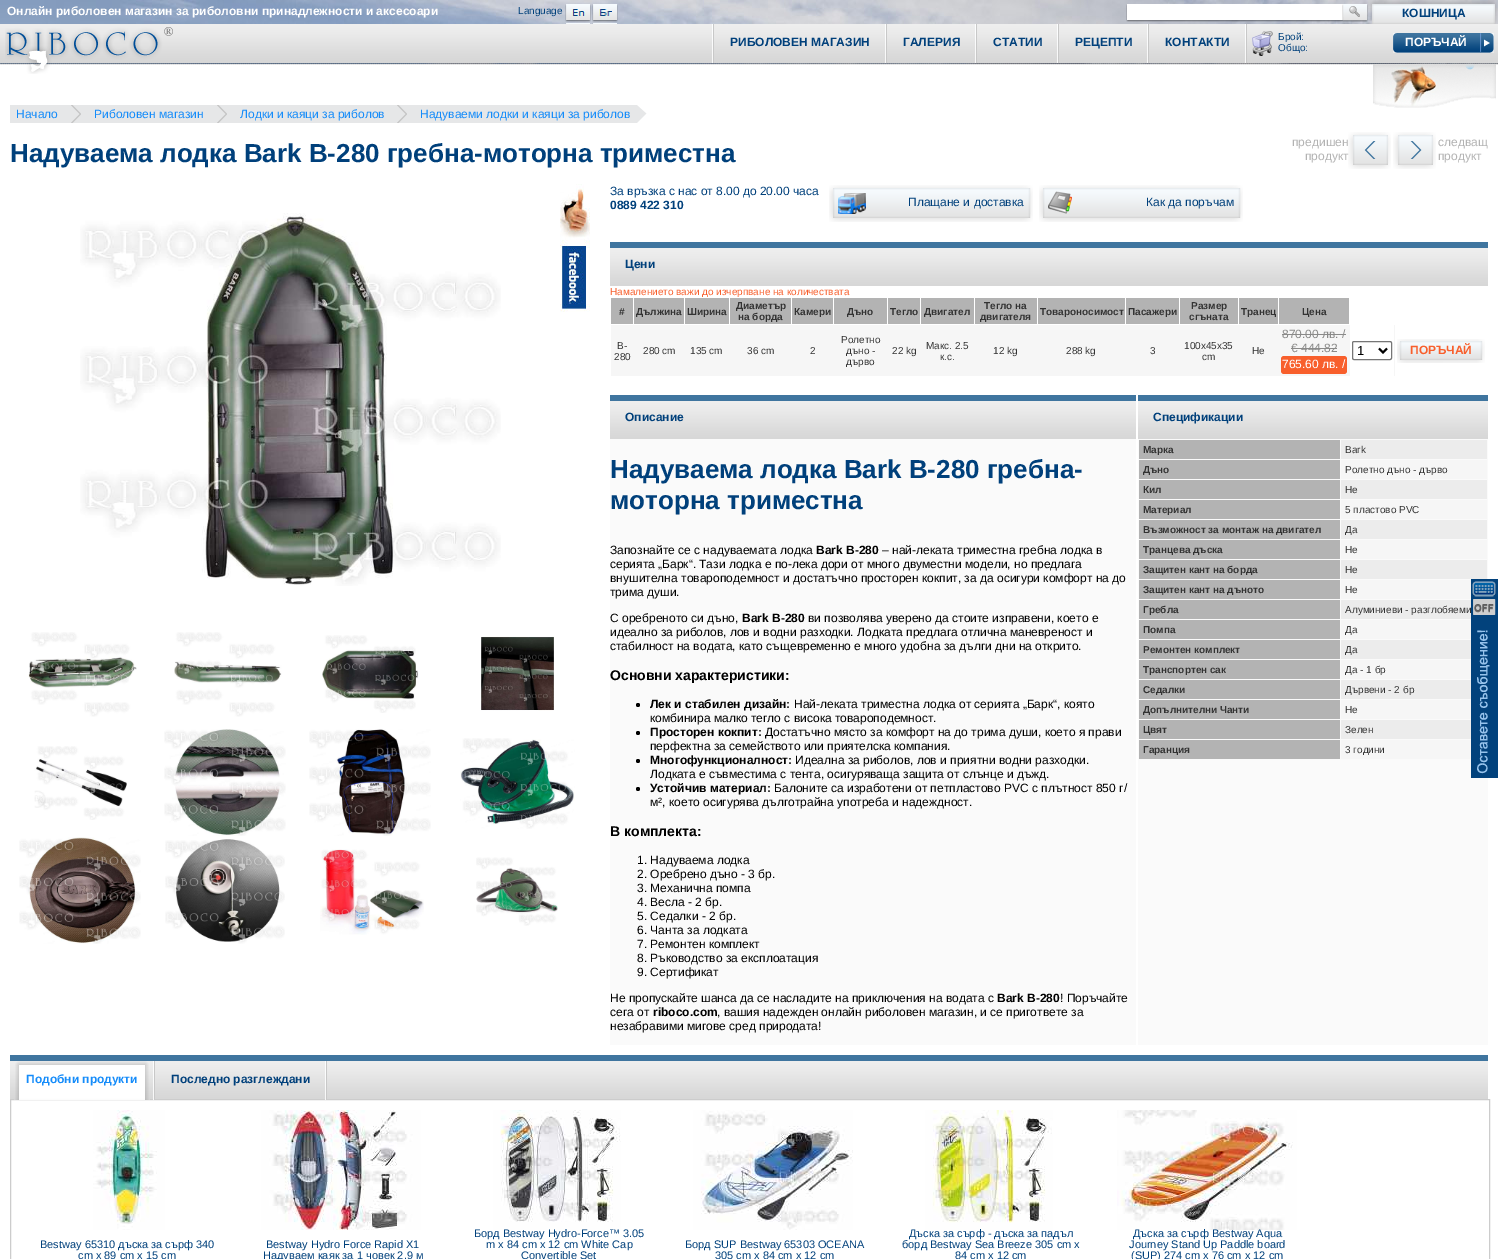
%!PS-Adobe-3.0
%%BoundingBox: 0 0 1498 1259
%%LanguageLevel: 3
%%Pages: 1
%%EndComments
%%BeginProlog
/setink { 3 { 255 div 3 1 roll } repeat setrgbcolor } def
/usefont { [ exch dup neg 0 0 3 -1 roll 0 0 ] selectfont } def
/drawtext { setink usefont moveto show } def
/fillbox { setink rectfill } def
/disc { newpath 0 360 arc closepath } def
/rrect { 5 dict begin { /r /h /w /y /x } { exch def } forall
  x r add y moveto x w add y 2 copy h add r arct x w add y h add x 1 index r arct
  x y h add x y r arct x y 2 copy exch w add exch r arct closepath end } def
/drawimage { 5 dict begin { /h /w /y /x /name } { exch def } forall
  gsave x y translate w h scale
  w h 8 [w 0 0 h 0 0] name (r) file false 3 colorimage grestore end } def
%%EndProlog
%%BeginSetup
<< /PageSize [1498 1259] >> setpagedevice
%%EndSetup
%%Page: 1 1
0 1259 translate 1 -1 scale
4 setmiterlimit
0 0 1498 1259 255 255 255 fillbox
(assets/img1.rgb) 0 0 1498 64 drawimage
(Онлайн риболовен магазин за риболовни принадлежности и аксесоари) 7 15 /LiberationSans-Bold 12 255 255 255 drawtext
(Language) 518 14 /LiberationSans-Regular 10 0 64 123 drawtext
(assets/img2.rgb) 565 4 26 20 drawimage
(assets/img3.rgb) 572 9 13 7 drawimage
(assets/img4.rgb) 592 4 26 20 drawimage
(assets/img5.rgb) 599 9 13 7 drawimage
(assets/img6.rgb) 1126 4 216 18 drawimage
1342 4 2 13 255 255 255 fillbox
(assets/img7.rgb) 1342 4 26 18 drawimage
(assets/img8.rgb) 0 24 1498 41 drawimage
(assets/img9.rgb) 5 27 168 47 drawimage
(assets/img10.rgb) 712 24 2 39 drawimage
(РИБОЛОВЕН МАГАЗИН) 730 46 /LiberationSans-Bold 12 0 64 123 drawtext
(assets/img10.rgb) 885 24 2 39 drawimage
(ГАЛЕРИЯ) 903 46 /LiberationSans-Bold 12 0 64 123 drawtext
(assets/img10.rgb) 975 24 2 39 drawimage
(СТАТИИ) 993 46 /LiberationSans-Bold 12 0 64 123 drawtext
(assets/img10.rgb) 1057 24 2 39 drawimage
(РЕЦЕПТИ) 1075 46 /LiberationSans-Bold 12 0 64 123 drawtext
(assets/img10.rgb) 1147 24 2 39 drawimage
(КОНТАКТИ) 1165 46 /LiberationSans-Bold 12 0 64 123 drawtext
(assets/img10.rgb) 1245 24 2 39 drawimage
(assets/img11.rgb) 1370 0 127 24 drawimage
(КОШНИЦА) 1402 17 /LiberationSans-Bold 12 0 64 123 drawtext
(assets/img12.rgb) 1252 31 21 25 drawimage
(Брой:) 1278 40 /LiberationSans-Regular 10 0 64 123 drawtext
(assets/img13.rgb) 1393 33 101 20 drawimage
(ПОРЪЧАЙ) 1405 46 /LiberationSans-Bold 12 255 255 255 drawtext
(Общо:) 1278 51 /LiberationSans-Regular 10 0 64 123 drawtext
(assets/img14.rgb) 1373 64 123 44 drawimage
10 105 627 18 230 231 232 fillbox
(assets/img15.rgb) 637 105 10 18 drawimage
(Начало) 16 118 /LiberationSans-Regular 12 21 140 250 drawtext
(assets/img16.rgb) 71 105 10 18 drawimage
(Риболовен магазин) 94 118 /LiberationSans-Regular 12 21 140 250 drawtext
(assets/img16.rgb) 217 105 10 18 drawimage
(Лодки и каяци за риболов) 240 118 /LiberationSans-Regular 12 21 140 250 drawtext
(assets/img16.rgb) 397 105 10 18 drawimage
(Надуваеми лодки и каяци за риболов) 420 118 /LiberationSans-Regular 12 21 140 250 drawtext
(Надуваема лодка Bark B-280 гребна-моторна триместна) 10 162 /LiberationSans-Bold 26 0 64 123 drawtext
(предишен) 1292 146 /LiberationSans-Regular 12 179 179 179 drawtext
(assets/img17.rgb) 1348 132 43 37 drawimage
(продукт) 1305 160 /LiberationSans-Regular 12 179 179 179 drawtext
(assets/img18.rgb) 1393 132 43 37 drawimage
(следващ) 1438 146 /LiberationSans-Regular 12 179 179 179 drawtext
(продукт) 1438 160 /LiberationSans-Regular 12 179 179 179 drawtext
(assets/img19.rgb) 560 184 30 128 drawimage
(assets/img20.rgb) 80 213 421 373 drawimage
(assets/img21.rgb) 28 632 109 85 drawimage
(assets/img22.rgb) 174 632 108 85 drawimage
(assets/img23.rgb) 322 635 97 78 drawimage
(assets/img24.rgb) 481 636 73 75 drawimage
(assets/img25.rgb) 34 746 93 74 drawimage
(assets/img26.rgb) 164 729 122 107 drawimage
(assets/img27.rgb) 309 729 122 107 drawimage
(assets/img28.rgb) 460 738 115 91 drawimage
(assets/img29.rgb) 19 837 122 107 drawimage
(assets/img30.rgb) 165 839 120 105 drawimage
(assets/img31.rgb) 320 849 104 86 drawimage
(assets/img32.rgb) 476 857 82 69 drawimage
(За връзка с нас от 8.00 до 20.00 часа) 610 195 /LiberationSans-Regular 12 0 64 123 drawtext
(0889 422 310) 610 209 /LiberationSans-Bold 12 0 64 123 drawtext
(assets/img33.rgb) 829 185 204 37 drawimage
(assets/img34.rgb) 838 193 28 21 drawimage
(Плащане и доставка) 908 206 /LiberationSans-Regular 12 0 64 123 drawtext
(assets/img33.rgb) 1039 185 204 37 drawimage
(assets/img35.rgb) 1048 191 24 23 drawimage
(Как да поръчам) 1146 206 /LiberationSans-Regular 12 0 64 123 drawtext
610 242 878 6 63 117 159 fillbox
(assets/img36.rgb) 610 248 878 38 drawimage
(Цени) 625 268 /LiberationSans-Bold 12 0 64 123 drawtext
(Намалението важи до изчерпване на количествата) 610 295 /LiberationSans-Regular 10 248 95 44 drawtext
611 298 22 26 179 179 179 fillbox
(#) 619 315 /LiberationSans-Bold 10 51 51 51 drawtext
634 298 50 26 179 179 179 fillbox
(Дължина) 636 315 /LiberationSans-Bold 10 51 51 51 drawtext
685 298 44 26 179 179 179 fillbox
(Ширина) 687 315 /LiberationSans-Bold 10 51 51 51 drawtext
730 298 61 26 179 179 179 fillbox
(Диаметър) 736 309 /LiberationSans-Bold 10 51 51 51 drawtext
(на борда) 738 320 /LiberationSans-Bold 10 51 51 51 drawtext
792 298 41 26 179 179 179 fillbox
(Камери) 794 315 /LiberationSans-Bold 10 51 51 51 drawtext
834 298 53 26 179 179 179 fillbox
(Дъно) 847 315 /LiberationSans-Bold 10 51 51 51 drawtext
888 298 32 26 179 179 179 fillbox
(Тегло) 890 315 /LiberationSans-Bold 10 51 51 51 drawtext
921 298 53 26 179 179 179 fillbox
(Двигател) 924 315 /LiberationSans-Bold 10 51 51 51 drawtext
975 298 62 26 179 179 179 fillbox
(Тегло на) 984 309 /LiberationSans-Bold 10 51 51 51 drawtext
(двигателя) 980 320 /LiberationSans-Bold 10 51 51 51 drawtext
1038 298 87 26 179 179 179 fillbox
(Товароносимост) 1040 315 /LiberationSans-Bold 10 51 51 51 drawtext
1126 298 53 26 179 179 179 fillbox
(Пасажери) 1128 315 /LiberationSans-Bold 10 51 51 51 drawtext
1180 298 58 26 179 179 179 fillbox
(Размер) 1191 309 /LiberationSans-Bold 10 51 51 51 drawtext
(сгъната) 1189 320 /LiberationSans-Bold 10 51 51 51 drawtext
1239 298 39 26 179 179 179 fillbox
(Транец) 1241 315 /LiberationSans-Bold 10 51 51 51 drawtext
1279 298 70 26 179 179 179 fillbox
(Цена) 1302 315 /LiberationSans-Bold 10 51 51 51 drawtext
611 325 784 51 246 246 246 fillbox
(B-) 617 349 /LiberationSans-Regular 10 51 51 51 drawtext
(280) 614 360 /LiberationSans-Regular 10 51 51 51 drawtext
(280 cm) 643 354 /LiberationSans-Regular 10 51 51 51 drawtext
(135 cm) 690 354 /LiberationSans-Regular 10 51 51 51 drawtext
(36 cm) 747 354 /LiberationSans-Regular 10 51 51 51 drawtext
(2) 810 354 /LiberationSans-Regular 10 51 51 51 drawtext
(Ролетно) 841 343 /LiberationSans-Regular 10 51 51 51 drawtext
(дъно -) 846 354 /LiberationSans-Regular 10 51 51 51 drawtext
(дърво) 846 365 /LiberationSans-Regular 10 51 51 51 drawtext
(22 kg) 892 354 /LiberationSans-Regular 10 51 51 51 drawtext
(Макс. 2.5) 926 349 /LiberationSans-Regular 10 51 51 51 drawtext
(к.с.) 940 360 /LiberationSans-Regular 10 51 51 51 drawtext
(12 kg) 993 354 /LiberationSans-Regular 10 51 51 51 drawtext
(288 kg) 1066 354 /LiberationSans-Regular 10 51 51 51 drawtext
(3) 1150 354 /LiberationSans-Regular 10 51 51 51 drawtext
(100х45х35) 1184 349 /LiberationSans-Regular 10 51 51 51 drawtext
(cm) 1202 360 /LiberationSans-Regular 10 51 51 51 drawtext
(Не) 1252 354 /LiberationSans-Regular 10 51 51 51 drawtext
(870.00 лв. /) 1282 338 /LiberationSans-Regular 12 138 138 137 drawtext
1282 334 64 1 138 138 137 fillbox
(€ 444.82) 1291 352 /LiberationSans-Regular 12 138 138 137 drawtext
1291 348 46 1 138 138 137 fillbox
248 95 44 setink
1281 356 66 18 3 rrect fill
(765.60 лв. /) 1282 368 /LiberationSans-Regular 12 255 255 255 drawtext
1350 325 44 51 255 255 255 fillbox
118 118 118 setink
1352.5 341.5 39 18 1.5 rrect stroke
0 0 0 setink
2 setlinewidth
1379 348.5 moveto 1383 352.5 lineto 1387 348.5 lineto stroke
(1) 1357 355 /LiberationSans-Regular 13 0 0 0 drawtext
(assets/img37.rgb) 1397 339 88 24 drawimage
(ПОРЪЧАЙ) 1410 354 /LiberationSans-Bold 12 248 95 44 drawtext
610 439 526 606 250 250 250 fillbox
610 395 526 6 63 117 159 fillbox
(assets/img38.rgb) 610 401 526 38 drawimage
(Описание) 625 421 /LiberationSans-Bold 12 0 64 123 drawtext
(Надуваема лодка Bark B-280 гребна-) 610 478 /LiberationSans-Bold 26 0 64 123 drawtext
(моторна триместна) 610 509 /LiberationSans-Bold 26 0 64 123 drawtext
(Запознайте се с надуваемата лодка) 610 554 /LiberationSans-Regular 12 0 0 0 drawtext
(Bark B-280) 816 554 /LiberationSans-Bold 12 0 0 0 drawtext
(– най-леката триместна гребна лодка в) 882 554 /LiberationSans-Regular 12 0 0 0 drawtext
(серията „Барк“. Тази лодка е по-лека дори от много двуместни модели, но предлага) 610 568 /LiberationSans-Regular 12 0 0 0 drawtext
(внушителна товароподемност и достатъчно просторен кокпит, за да осигури комфорт на до) 610 582 /LiberationSans-Regular 12 0 0 0 drawtext
(трима души.) 610 596 /LiberationSans-Regular 12 0 0 0 drawtext
(С оребреното си дъно,) 610 622 /LiberationSans-Regular 12 0 0 0 drawtext
(Bark B-280) 742 622 /LiberationSans-Bold 12 0 0 0 drawtext
(ви позволява уверено да стоите изправени, което е) 808 622 /LiberationSans-Regular 12 0 0 0 drawtext
(идеално за риболов, лов и водни разходки. Лодката предлага отлична маневреност и) 610 636 /LiberationSans-Regular 12 0 0 0 drawtext
(стабилност на водата, като същевременно е много удобна за дълги дни на открито.) 610 650 /LiberationSans-Regular 12 0 0 0 drawtext
(Основни характеристики:) 610 680 /LiberationSans-Bold 14 0 0 0 drawtext
638 705 2 disc fill
(Лек и стабилен дизайн:) 650 708 /LiberationSans-Bold 12 0 0 0 drawtext
(Най-леката триместна лодка от серията „Барк“, която) 794 708 /LiberationSans-Regular 12 0 0 0 drawtext
(комбинира малко тегло с висока товароподемност.) 650 722 /LiberationSans-Regular 12 0 0 0 drawtext
638 733 2 disc fill
(Просторен кокпит:) 650 736 /LiberationSans-Bold 12 0 0 0 drawtext
(Достатъчно място за комфорт на до трима души, което я прави) 765 736 /LiberationSans-Regular 12 0 0 0 drawtext
(перфектна за семейството или приятелска компания.) 650 750 /LiberationSans-Regular 12 0 0 0 drawtext
638 761 2 disc fill
(Многофункционалност:) 650 764 /LiberationSans-Bold 12 0 0 0 drawtext
(Идеална за риболов, лов и приятни водни разходки.) 795 764 /LiberationSans-Regular 12 0 0 0 drawtext
(Лодката е съвместима с тента, осигуряваща защита от слънце и дъжд.) 650 778 /LiberationSans-Regular 12 0 0 0 drawtext
638 789 2 disc fill
(Устойчив материал:) 650 792 /LiberationSans-Bold 12 0 0 0 drawtext
(Балоните са изработени от петпластово PVC с плътност 850 г/) 774 792 /LiberationSans-Regular 12 0 0 0 drawtext
(м², което осигурява дълготрайна употреба и надеждност.) 650 806 /LiberationSans-Regular 12 0 0 0 drawtext
(В комплекта:) 610 836 /LiberationSans-Bold 14 0 0 0 drawtext
(1. Надуваема лодка) 637 864 /LiberationSans-Regular 12 0 0 0 drawtext
(2. Оребрено дъно - 3 бр.) 637 878 /LiberationSans-Regular 12 0 0 0 drawtext
(3. Механична помпа) 637 892 /LiberationSans-Regular 12 0 0 0 drawtext
(4. Весла - 2 бр.) 637 906 /LiberationSans-Regular 12 0 0 0 drawtext
(5. Седалки - 2 бр.) 637 920 /LiberationSans-Regular 12 0 0 0 drawtext
(6. Чанта за лодката) 637 934 /LiberationSans-Regular 12 0 0 0 drawtext
(7. Ремонтен комплект) 637 948 /LiberationSans-Regular 12 0 0 0 drawtext
(8. Ръководство за експлоатация) 637 962 /LiberationSans-Regular 12 0 0 0 drawtext
(9. Сертификат) 637 976 /LiberationSans-Regular 12 0 0 0 drawtext
(Не пропускайте шанса да се насладите на приключения на водата с) 610 1002 /LiberationSans-Regular 12 0 0 0 drawtext
(Bark B-280) 997 1002 /LiberationSans-Bold 12 0 0 0 drawtext
(! Поръчайте) 1060 1002 /LiberationSans-Regular 12 0 0 0 drawtext
(сега от) 610 1016 /LiberationSans-Regular 12 0 0 0 drawtext
(riboco.com) 653 1016 /LiberationSans-Bold 12 0 0 0 drawtext
(, вашия надежден онлайн риболовен магазин, и се пригответе за) 717 1016 /LiberationSans-Regular 12 0 0 0 drawtext
(незабравими мигове сред природата!) 610 1030 /LiberationSans-Regular 12 0 0 0 drawtext
1138 439 350 606 250 250 250 fillbox
1138 395 350 6 63 117 159 fillbox
(assets/img39.rgb) 1138 401 350 38 drawimage
(Спецификации) 1153 421 /LiberationSans-Bold 12 0 64 123 drawtext
1139 440 201 19 179 179 179 fillbox
(Марка) 1143 453 /LiberationSans-Bold 10 51 51 51 drawtext
1341 440 146 19 236 236 236 fillbox
(Bark) 1345 453 /LiberationSans-Regular 10 51 51 51 drawtext
1139 460 201 19 179 179 179 fillbox
(Дъно) 1143 473 /LiberationSans-Bold 10 51 51 51 drawtext
1341 460 146 19 246 246 246 fillbox
(Ролетно дъно - дърво) 1345 473 /LiberationSans-Regular 10 51 51 51 drawtext
1139 480 201 19 179 179 179 fillbox
(Кил) 1143 493 /LiberationSans-Bold 10 51 51 51 drawtext
1341 480 146 19 236 236 236 fillbox
(Не) 1345 493 /LiberationSans-Regular 10 51 51 51 drawtext
1139 500 201 19 179 179 179 fillbox
(Материал) 1143 513 /LiberationSans-Bold 10 51 51 51 drawtext
1341 500 146 19 246 246 246 fillbox
(5 пластово PVC) 1345 513 /LiberationSans-Regular 10 51 51 51 drawtext
1139 520 201 19 179 179 179 fillbox
(Възможност за монтаж на двигател) 1143 533 /LiberationSans-Bold 10 51 51 51 drawtext
1341 520 146 19 236 236 236 fillbox
(Да) 1345 533 /LiberationSans-Regular 10 51 51 51 drawtext
1139 540 201 19 179 179 179 fillbox
(Транцева дъска) 1143 553 /LiberationSans-Bold 10 51 51 51 drawtext
1341 540 146 19 246 246 246 fillbox
(Не) 1345 553 /LiberationSans-Regular 10 51 51 51 drawtext
1139 560 201 19 179 179 179 fillbox
(Защитен кант на борда) 1143 573 /LiberationSans-Bold 10 51 51 51 drawtext
1341 560 146 19 236 236 236 fillbox
(Не) 1345 573 /LiberationSans-Regular 10 51 51 51 drawtext
1139 580 201 19 179 179 179 fillbox
(Защитен кант на дъното) 1143 593 /LiberationSans-Bold 10 51 51 51 drawtext
1341 580 130 19 246 246 246 fillbox
(Не) 1345 593 /LiberationSans-Regular 10 51 51 51 drawtext
1139 600 201 19 179 179 179 fillbox
(Гребла) 1143 613 /LiberationSans-Bold 10 51 51 51 drawtext
1341 600 130 19 236 236 236 fillbox
(Алуминиеви - разглобяеми) 1345 613 /LiberationSans-Regular 10 51 51 51 drawtext
1139 620 201 19 179 179 179 fillbox
(Помпа) 1143 633 /LiberationSans-Bold 10 51 51 51 drawtext
1341 620 130 19 246 246 246 fillbox
(Да) 1345 633 /LiberationSans-Regular 10 51 51 51 drawtext
1139 640 201 19 179 179 179 fillbox
(Ремонтен комплект) 1143 653 /LiberationSans-Bold 10 51 51 51 drawtext
1341 640 130 19 236 236 236 fillbox
(Да) 1345 653 /LiberationSans-Regular 10 51 51 51 drawtext
1139 660 201 19 179 179 179 fillbox
(Транспортен сак) 1143 673 /LiberationSans-Bold 10 51 51 51 drawtext
1341 660 130 19 246 246 246 fillbox
(Да - 1 бр) 1345 673 /LiberationSans-Regular 10 51 51 51 drawtext
1139 680 201 19 179 179 179 fillbox
(Седалки) 1143 693 /LiberationSans-Bold 10 51 51 51 drawtext
1341 680 130 19 236 236 236 fillbox
(Дървени - 2 бр) 1345 693 /LiberationSans-Regular 10 51 51 51 drawtext
1139 700 201 19 179 179 179 fillbox
(Допълнителни Чанти) 1143 713 /LiberationSans-Bold 10 51 51 51 drawtext
1341 700 130 19 246 246 246 fillbox
(Не) 1345 713 /LiberationSans-Regular 10 51 51 51 drawtext
1139 720 201 19 179 179 179 fillbox
(Цвят) 1143 733 /LiberationSans-Bold 10 51 51 51 drawtext
1341 720 130 19 236 236 236 fillbox
(Зелен) 1345 733 /LiberationSans-Regular 10 51 51 51 drawtext
1139 740 201 19 179 179 179 fillbox
(Гаранция) 1143 753 /LiberationSans-Bold 10 51 51 51 drawtext
1341 740 130 19 246 246 246 fillbox
(3 години) 1345 753 /LiberationSans-Regular 10 51 51 51 drawtext
(assets/img40.rgb) 1471 579 27 199 drawimage
10 1055 1478 6 63 117 159 fillbox
(assets/img41.rgb) 10 1061 1478 38 drawimage
204 204 204 setink
1 setlinewidth
10.5 1099.5 1479 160 rectstroke
(assets/img42.rgb) 14 1061 5 39 drawimage
(assets/img43.rgb) 19 1061 126 39 drawimage
(Подобни продукти) 26 1083 /LiberationSans-Bold 12 21 140 250 drawtext
(assets/img44.rgb) 145 1061 5 39 drawimage
(assets/img10.rgb) 153 1061 2 39 drawimage
(Последно разглеждани) 171 1083 /LiberationSans-Bold 12 0 64 123 drawtext
(assets/img10.rgb) 325 1061 2 39 drawimage
(assets/img45.rgb) 37 1110 180 120 drawimage
(Bestway 65310 дъска за сърф 340) 40 1248 /LiberationSans-Regular 11 0 64 123 drawtext
(cm x 89 cm x 15 cm) 78 1259 /LiberationSans-Regular 11 0 64 123 drawtext
(assets/img46.rgb) 253 1110 180 120 drawimage
(Bestway Hydro Force Rapid X1) 266 1248 /LiberationSans-Regular 11 0 64 123 drawtext
(Надуваем каяк за 1 човек 2.9 м) 263 1259 /LiberationSans-Regular 11 0 64 123 drawtext
(assets/img47.rgb) 469 1110 180 120 drawimage
(Борд Bestway Hydro-Force™ 3.05) 474 1237 /LiberationSans-Regular 11 0 64 123 drawtext
(m x 84 cm x 12 cm White Cap) 486 1248 /LiberationSans-Regular 11 0 64 123 drawtext
(Convertible Set) 521 1259 /LiberationSans-Regular 11 0 64 123 drawtext
(assets/img48.rgb) 685 1110 180 120 drawimage
(Борд SUP Bestway 65303 OCEANA) 685 1248 /LiberationSans-Regular 11 0 64 123 drawtext
(305 cm x 84 cm x 12 cm) 715 1259 /LiberationSans-Regular 11 0 64 123 drawtext
(assets/img49.rgb) 901 1110 180 120 drawimage
(Дъска за сърф - дъска за падъл) 909 1237 /LiberationSans-Regular 11 0 64 123 drawtext
(борд Bestway Sea Breeze 305 cm x) 902 1248 /LiberationSans-Regular 11 0 64 123 drawtext
(84 cm x 12 cm) 955 1259 /LiberationSans-Regular 11 0 64 123 drawtext
(assets/img50.rgb) 1117 1110 180 120 drawimage
(Дъска за сърф Bestway Aqua) 1133 1237 /LiberationSans-Regular 11 0 64 123 drawtext
(Journey Stand Up Paddle board) 1129 1248 /LiberationSans-Regular 11 0 64 123 drawtext
(\(SUP\) 274 cm x 76 cm x 12 cm) 1131 1259 /LiberationSans-Regular 11 0 64 123 drawtext
showpage
%%EOF
